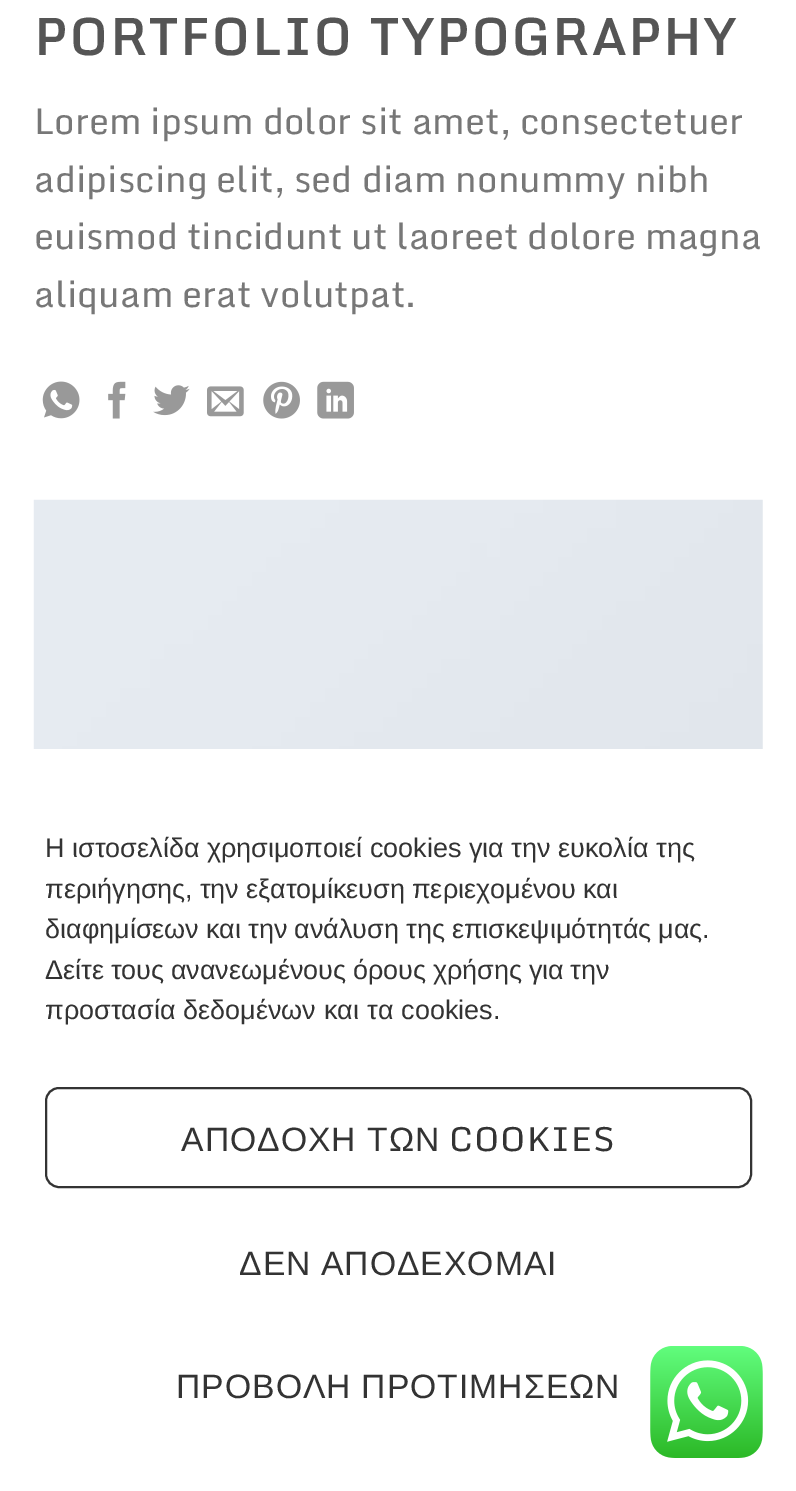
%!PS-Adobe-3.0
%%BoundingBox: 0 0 796 1491
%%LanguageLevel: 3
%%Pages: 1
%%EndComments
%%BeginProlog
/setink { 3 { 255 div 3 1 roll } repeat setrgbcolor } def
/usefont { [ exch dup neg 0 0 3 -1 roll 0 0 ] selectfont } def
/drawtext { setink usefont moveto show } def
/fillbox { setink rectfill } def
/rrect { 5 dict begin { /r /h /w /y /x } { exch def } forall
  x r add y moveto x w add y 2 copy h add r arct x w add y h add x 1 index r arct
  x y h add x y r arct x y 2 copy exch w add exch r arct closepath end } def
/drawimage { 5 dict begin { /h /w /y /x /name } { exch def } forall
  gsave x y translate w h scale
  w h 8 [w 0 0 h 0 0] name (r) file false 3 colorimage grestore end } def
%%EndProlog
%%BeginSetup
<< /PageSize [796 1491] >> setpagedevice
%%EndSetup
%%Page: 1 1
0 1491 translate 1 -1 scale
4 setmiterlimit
0 0 796 1491 255 255 255 fillbox
/Monda-Bold 50.4 usefont
85 85 85 setink
34 55 moveto 2.5 0 (PORTFOLIO TYPOGRAPHY) ashow
(Lorem ipsum dolor sit amet, consectetuer) 34 134 /Monda-Regular 36 119 119 119 drawtext
(adipiscing elit, sed diam nonummy nibh) 34 192 /Monda-Regular 36 119 119 119 drawtext
(euismod tincidunt ut laoreet dolore magna) 34 249 /Monda-Regular 36 119 119 119 drawtext
(aliquam erat volutpat.) 34 307 /Monda-Regular 36 119 119 119 drawtext
(assets/img1.rgb) 42 381 38 38 drawimage
(assets/img2.rgb) 108 381 18 38 drawimage
(assets/img3.rgb) 153 385 37 31 drawimage
(assets/img4.rgb) 207 386 37 31 drawimage
(assets/img5.rgb) 263 381 37 38 drawimage
(assets/img6.rgb) 317 381 37 38 drawimage
(assets/img7.rgb) 33 499 730 250 drawimage
(Η ιστοσελίδα χρησιμοποιεί cookies για την ευκολία της) 45 857 /LiberationSans-Regular 27 51 51 51 drawtext
45 898 moveto -0.5 0 32 (περιήγησης, την εξατομίκευση περιεχομένου και) widthshow
45 938 moveto -0.5 0 32 (διαφημίσεων και την ανάλυση της επισκεψιμότητάς μας.) widthshow
45 979 moveto -0.75 0 32 (Δείτε τους ανανεωμένους όρους χρήσης για την) widthshow
45 1019 moveto 0.5 0 32 (προστασία δεδομένων και τα cookies.) widthshow
2 setlinewidth
46 1088 705 99 13 rrect stroke
/LiberationSans-Regular 33.75 usefont
181 1151 moveto 1 0 (ΑΠΟΔΟΧΗ ΤΩΝ) ashow
/Monda-Regular 33.75 usefont
449 1151 moveto 1 0 (COOKIES) ashow
/LiberationSans-Regular 33.75 usefont
239 1275 moveto -1 0 32 1 0 (ΔΕΝ ΑΠΟΔΕΧΟΜΑΙ) awidthshow
176 1398 moveto -1 0 32 1 0 (ΠΡΟΒΟΛΗ ΠΡΟΤΙΜΗΣΕΩΝ) awidthshow
(assets/img8.rgb) 650 1346 113 112 drawimage
showpage
%%EOF
